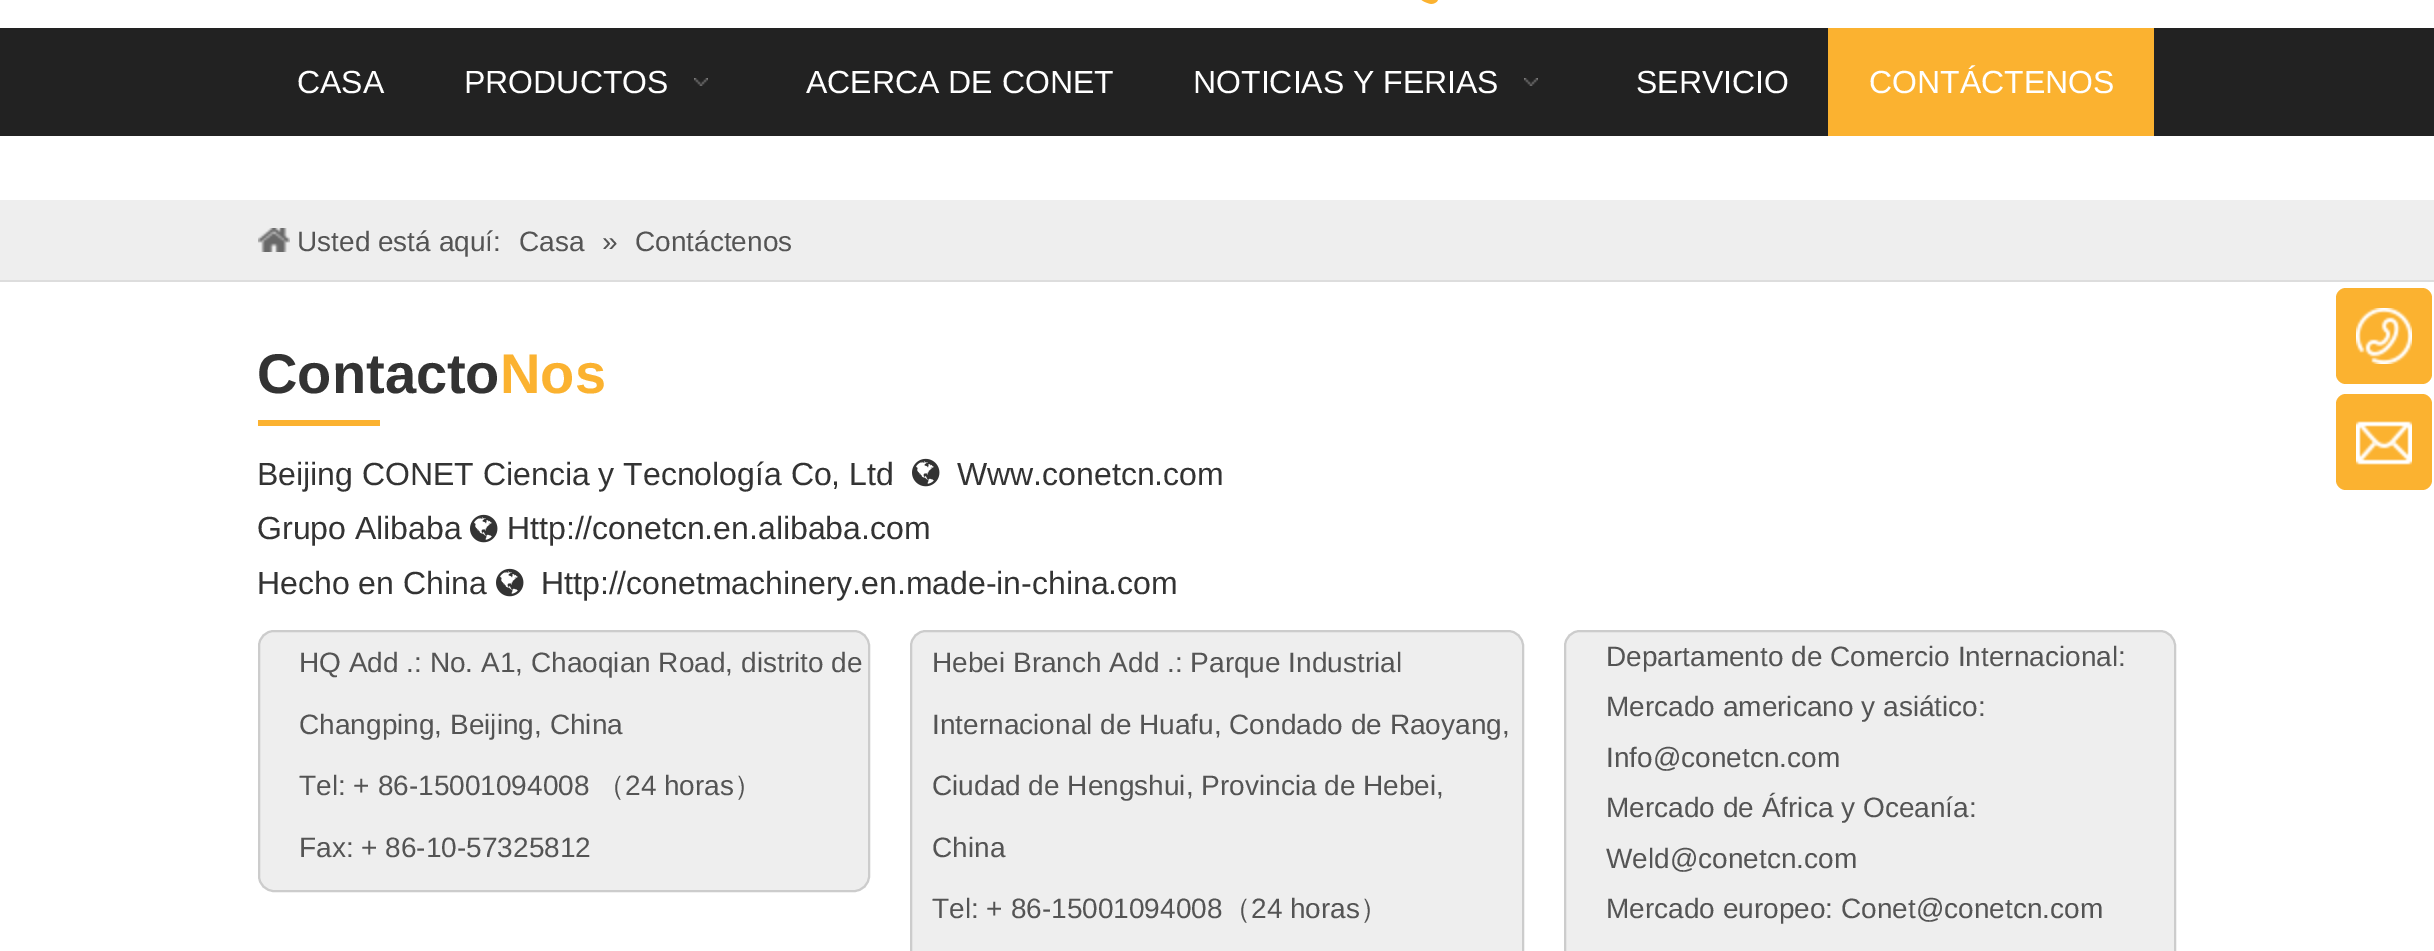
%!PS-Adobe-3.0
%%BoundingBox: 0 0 2434 951
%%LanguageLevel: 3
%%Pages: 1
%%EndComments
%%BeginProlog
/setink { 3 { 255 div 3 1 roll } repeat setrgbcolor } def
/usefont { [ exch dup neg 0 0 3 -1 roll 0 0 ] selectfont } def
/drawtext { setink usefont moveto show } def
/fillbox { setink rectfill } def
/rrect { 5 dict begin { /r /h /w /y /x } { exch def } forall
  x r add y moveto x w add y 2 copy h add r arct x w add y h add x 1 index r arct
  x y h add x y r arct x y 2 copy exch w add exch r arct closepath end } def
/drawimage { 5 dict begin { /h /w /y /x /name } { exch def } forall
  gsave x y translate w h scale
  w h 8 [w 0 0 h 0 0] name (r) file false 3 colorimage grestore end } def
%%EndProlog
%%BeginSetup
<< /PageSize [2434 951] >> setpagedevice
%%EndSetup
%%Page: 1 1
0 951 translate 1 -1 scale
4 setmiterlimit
0 0 2434 951 255 255 255 fillbox
(assets/img1.rgb) 1421 0 17 4 drawimage
0 28 2434 108 34 34 34 fillbox
(CASA) 297 93 /LiberationSans-Regular 32 255 255 255 drawtext
(PRODUCTOS) 464 93 /LiberationSans-Regular 32 255 255 255 drawtext
(assets/img2.rgb) 694 78 14 8 drawimage
(ACERCA DE CONET) 806 93 /LiberationSans-Regular 32 255 255 255 drawtext
(NOTICIAS Y FERIAS) 1193 93 /LiberationSans-Regular 32 255 255 255 drawtext
(assets/img2.rgb) 1524 78 14 8 drawimage
(SERVICIO) 1636 93 /LiberationSans-Regular 32 255 255 255 drawtext
1828 28 326 108 251 178 48 fillbox
(CONTÁCTENOS) 1869 93 /LiberationSans-Regular 32 255 255 255 drawtext
0 200 2434 80 238 238 238 fillbox
0 280 2434 2 221 221 221 fillbox
(assets/img3.rgb) 258 228 32 24 drawimage
(Usted está aquí:) 297 251 /LiberationSans-Regular 28 84 84 84 drawtext
(Casa) 519 251 /LiberationSans-Regular 28 84 84 84 drawtext
(») 602 251 /LiberationSans-Regular 28 84 84 84 drawtext
(Contáctenos) 635 251 /LiberationSans-Regular 28 84 84 84 drawtext
258 420 122 6 251 178 49 fillbox
(Contacto) 257 393 /LiberationSans-Bold 56 51 51 51 drawtext
(Nos) 500 393 /LiberationSans-Bold 56 251 178 48 drawtext
(Beijing CONET Ciencia y Tecnología Co, Ltd) 257 485 /LiberationSans-Regular 32 51 51 51 drawtext
(assets/img4.rgb) 912 458 28 29 drawimage
(Www.conetcn.com) 957 485 /LiberationSans-Regular 32 51 51 51 drawtext
(Grupo Alibaba) 257 539 /LiberationSans-Regular 32 51 51 51 drawtext
(assets/img4.rgb) 470 514 28 29 drawimage
(Http://conetcn.en.alibaba.com) 507 539 /LiberationSans-Regular 32 51 51 51 drawtext
(Hecho en China) 257 594 /LiberationSans-Regular 32 51 51 51 drawtext
(assets/img4.rgb) 496 568 28 29 drawimage
(Http://conetmachinery.en.made-in-china.com) 541 594 /LiberationSans-Regular 32 51 51 51 drawtext
238 238 238 setink
259 631 610 260 15 rrect gsave fill grestore
204 204 204 setink
2 setlinewidth
stroke
(HQ Add .: No. A1, Chaoqian Road, distrito de) 299 672 /LiberationSans-Regular 28 84 84 84 drawtext
(Changping, Beijing, China) 299 734 /LiberationSans-Regular 28 84 84 84 drawtext
(Tel: + 86-15001094008) 299 795 /LiberationSans-Regular 28 84 84 84 drawtext
(（) 597 795 /WenQuanYiZenHei-Medium 28 84 84 84 drawtext
(24 horas) 625 795 /LiberationSans-Regular 28 84 84 84 drawtext
(）) 734 795 /WenQuanYiZenHei-Medium 28 84 84 84 drawtext
(Fax: + 86-10-57325812) 299 857 /LiberationSans-Regular 28 84 84 84 drawtext
238 238 238 setink
911 631 612 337 15 rrect gsave fill grestore
204 204 204 setink
stroke
(Hebei Branch Add .: Parque Industrial) 932 672 /LiberationSans-Regular 28 84 84 84 drawtext
(Internacional de Huafu, Condado de Raoyang,) 932 734 /LiberationSans-Regular 28 84 84 84 drawtext
(Ciudad de Hengshui, Provincia de Hebei,) 932 795 /LiberationSans-Regular 28 84 84 84 drawtext
(China) 932 857 /LiberationSans-Regular 28 84 84 84 drawtext
(Tel: + 86-15001094008) 932 918 /LiberationSans-Regular 28 84 84 84 drawtext
(（) 1223 918 /WenQuanYiZenHei-Medium 28 84 84 84 drawtext
(24 horas) 1251 918 /LiberationSans-Regular 28 84 84 84 drawtext
(）) 1360 918 /WenQuanYiZenHei-Medium 28 84 84 84 drawtext
238 238 238 setink
1565 631 610 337 15 rrect gsave fill grestore
204 204 204 setink
stroke
(Departamento de Comercio Internacional:) 1606 666 /LiberationSans-Regular 28 84 84 84 drawtext
(Mercado americano y asiático:) 1606 716 /LiberationSans-Regular 28 84 84 84 drawtext
(Info@conetcn.com) 1606 767 /LiberationSans-Regular 28 84 84 84 drawtext
(Mercado de África y Oceanía:) 1606 817 /LiberationSans-Regular 28 84 84 84 drawtext
(Weld@conetcn.com) 1606 868 /LiberationSans-Regular 28 84 84 84 drawtext
(Mercado europeo: Conet@conetcn.com) 1606 918 /LiberationSans-Regular 28 84 84 84 drawtext
251 178 48 setink
2336 288 96 96 10 rrect fill
(assets/img5.rgb) 2356 308 56 56 drawimage
2336 394 96 96 10 rrect fill
(assets/img6.rgb) 2356 421 56 44 drawimage
showpage
%%EOF
